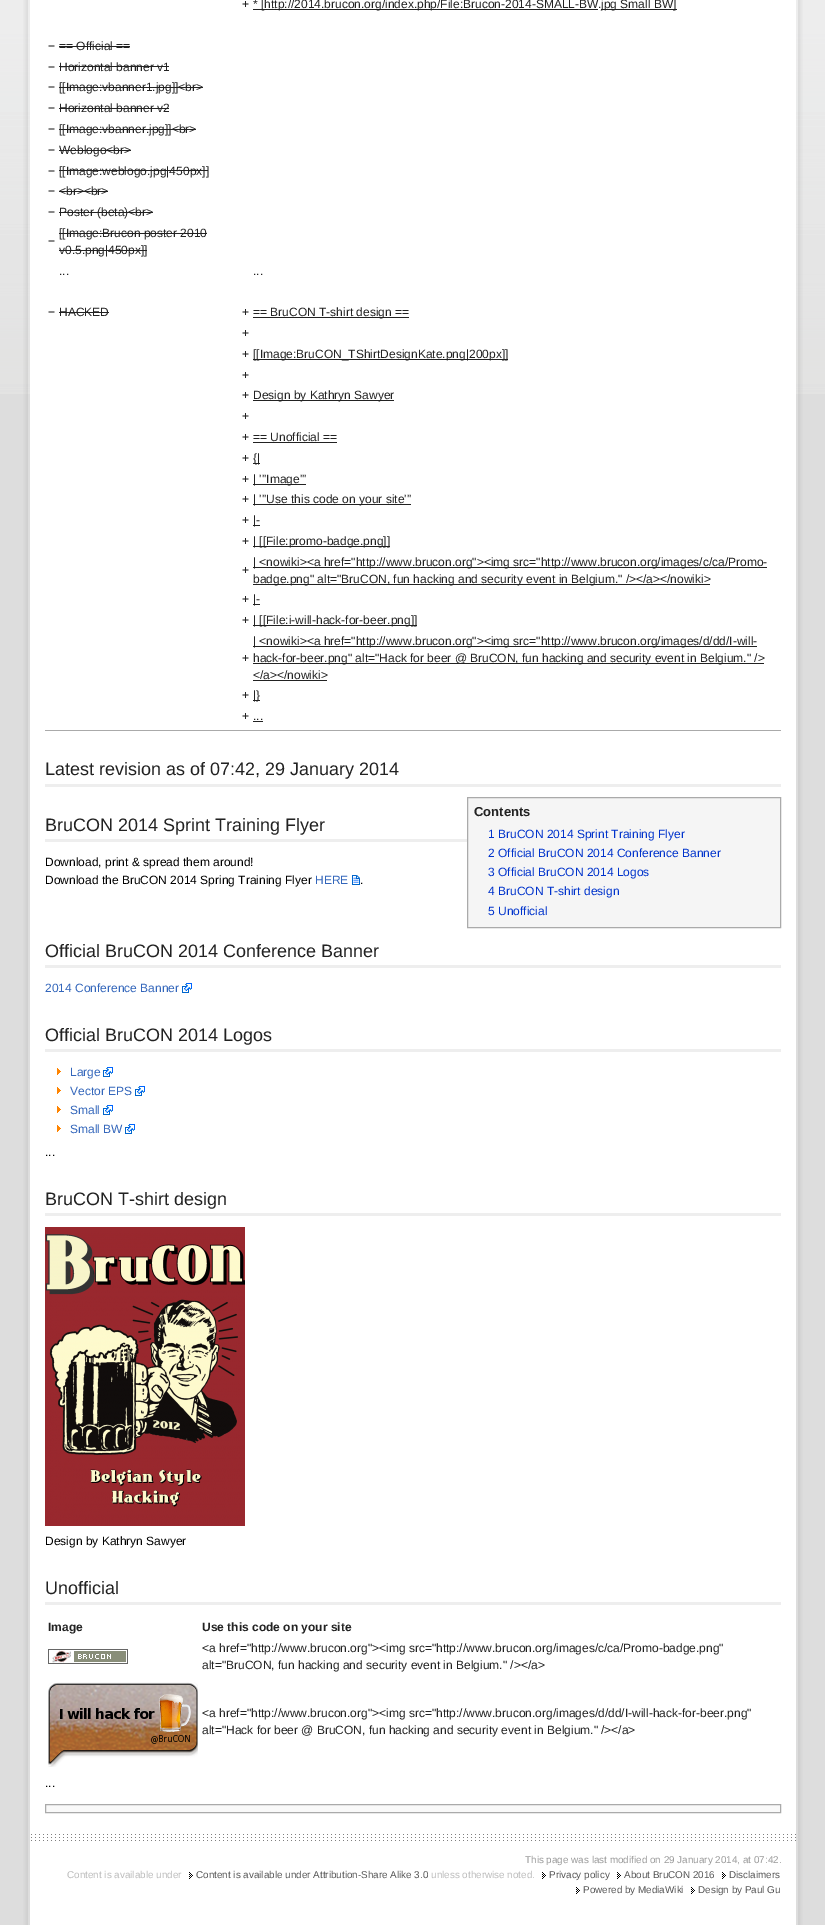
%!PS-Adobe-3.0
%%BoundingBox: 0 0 825 1925
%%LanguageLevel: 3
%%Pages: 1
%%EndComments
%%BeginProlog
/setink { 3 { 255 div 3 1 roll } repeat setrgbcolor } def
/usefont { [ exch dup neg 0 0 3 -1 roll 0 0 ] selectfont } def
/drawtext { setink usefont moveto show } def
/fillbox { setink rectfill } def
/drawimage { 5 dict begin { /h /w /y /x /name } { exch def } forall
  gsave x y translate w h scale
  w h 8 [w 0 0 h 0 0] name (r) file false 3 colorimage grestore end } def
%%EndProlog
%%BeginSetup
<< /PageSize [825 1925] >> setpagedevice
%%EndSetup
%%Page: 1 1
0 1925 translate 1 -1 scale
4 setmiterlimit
0 0 825 1925 221 221 221 fillbox
(assets/img1.rgb) 0 0 825 394 drawimage
(assets/img2.rgb) 23 0 5 1925 drawimage
(assets/img3.rgb) 798 0 5 1925 drawimage
30 0 766 1925 255 255 255 fillbox
(+) 242 8 /LiberationSans-Regular 12 34 34 34 drawtext
253 9 345 1 34 34 34 fillbox
(* [http://2014.brucon.org/index.php/File:Brucon-2014-SMALL-BW.) 253 8 /LiberationSans-Regular 12 34 34 34 drawtext
601 9 76 1 34 34 34 fillbox
(jpg Small BW]) 601 8 /LiberationSans-Regular 12 34 34 34 drawtext
(−) 48 50 /LiberationSans-Regular 12 34 34 34 drawtext
(== Official ==) 59 50 /LiberationSans-Regular 12 34 34 34 drawtext
59 46 71 1 34 34 34 fillbox
(−) 48 71 /LiberationSans-Regular 12 34 34 34 drawtext
(Horizontal banner v1) 59 71 /LiberationSans-Regular 12 34 34 34 drawtext
59 66 110 1 34 34 34 fillbox
(−) 48 91 /LiberationSans-Regular 12 34 34 34 drawtext
([[Image:vbanner1.jpg]]<br>) 59 91 /LiberationSans-Regular 12 34 34 34 drawtext
59 87 144 1 34 34 34 fillbox
(−) 48 112 /LiberationSans-Regular 12 34 34 34 drawtext
(Horizontal banner v2) 59 112 /LiberationSans-Regular 12 34 34 34 drawtext
59 108 110 1 34 34 34 fillbox
(−) 48 133 /LiberationSans-Regular 12 34 34 34 drawtext
([[Image:vbanner.jpg]]<br>) 59 133 /LiberationSans-Regular 12 34 34 34 drawtext
59 129 137 1 34 34 34 fillbox
(−) 48 154 /LiberationSans-Regular 12 34 34 34 drawtext
(Weblogo<br>) 59 154 /LiberationSans-Regular 12 34 34 34 drawtext
59 150 72 1 34 34 34 fillbox
(−) 48 175 /LiberationSans-Regular 12 34 34 34 drawtext
([[Image:weblogo.jpg|450px]]) 59 175 /LiberationSans-Regular 12 34 34 34 drawtext
59 170 149 1 34 34 34 fillbox
(−) 48 195 /LiberationSans-Regular 12 34 34 34 drawtext
(<br><br>) 59 195 /LiberationSans-Regular 12 34 34 34 drawtext
59 191 49 1 34 34 34 fillbox
(−) 48 216 /LiberationSans-Regular 12 34 34 34 drawtext
(Poster \(beta\)<br>) 59 216 /LiberationSans-Regular 12 34 34 34 drawtext
59 212 94 1 34 34 34 fillbox
(−) 48 245 /LiberationSans-Regular 12 34 34 34 drawtext
([[Image:Brucon poster 2010) 59 237 /LiberationSans-Regular 12 34 34 34 drawtext
59 233 148 1 34 34 34 fillbox
(v0.5.png|450px]]) 59 254 /LiberationSans-Regular 12 34 34 34 drawtext
59 250 88 1 34 34 34 fillbox
(...) 59 275 /LiberationSans-Regular 12 34 34 34 drawtext
(...) 253 275 /LiberationSans-Regular 12 34 34 34 drawtext
(−) 48 316 /LiberationSans-Regular 12 34 34 34 drawtext
(HACKED) 59 316 /LiberationSans-Regular 12 34 34 34 drawtext
59 312 50 1 34 34 34 fillbox
(+) 242 316 /LiberationSans-Regular 12 34 34 34 drawtext
253 317 156 1 34 34 34 fillbox
(== BruCON T-shirt design ==) 253 316 /LiberationSans-Regular 12 34 34 34 drawtext
(+) 242 337 /LiberationSans-Regular 12 34 34 34 drawtext
(+) 242 358 /LiberationSans-Regular 12 34 34 34 drawtext
253 359 255 1 34 34 34 fillbox
([[Image:BruCON_TShirtDesignKate.png|200px]]) 253 358 /LiberationSans-Regular 12 34 34 34 drawtext
(+) 242 379 /LiberationSans-Regular 12 34 34 34 drawtext
(+) 242 399 /LiberationSans-Regular 12 34 34 34 drawtext
253 400 141 1 34 34 34 fillbox
(Design by Kathryn Sawyer) 253 399 /LiberationSans-Regular 12 34 34 34 drawtext
(+) 242 420 /LiberationSans-Regular 12 34 34 34 drawtext
(+) 242 441 /LiberationSans-Regular 12 34 34 34 drawtext
(== Unofficial ==) 253 441 /LiberationSans-Regular 12 34 34 34 drawtext
253 442 84 1 34 34 34 fillbox
(+) 242 462 /LiberationSans-Regular 12 34 34 34 drawtext
253 463 7 1 34 34 34 fillbox
({|) 253 462 /LiberationSans-Regular 12 34 34 34 drawtext
(+) 242 483 /LiberationSans-Regular 12 34 34 34 drawtext
253 484 53 1 34 34 34 fillbox
(| '''Image''') 253 483 /LiberationSans-Regular 12 34 34 34 drawtext
(+) 242 503 /LiberationSans-Regular 12 34 34 34 drawtext
253 504 158 1 34 34 34 fillbox
(| '''Use this code on your site''') 253 503 /LiberationSans-Regular 12 34 34 34 drawtext
(+) 242 524 /LiberationSans-Regular 12 34 34 34 drawtext
253 525 7 1 34 34 34 fillbox
(|-) 253 524 /LiberationSans-Regular 12 34 34 34 drawtext
(+) 242 545 /LiberationSans-Regular 12 34 34 34 drawtext
253 546 137 1 34 34 34 fillbox
(| [[File:promo-badge.png]]) 253 545 /LiberationSans-Regular 12 34 34 34 drawtext
(+) 242 574 /LiberationSans-Regular 12 34 34 34 drawtext
253 567 514 1 34 34 34 fillbox
(| <nowiki><a href="http://www.brucon.org"><img src="http://www.brucon.org/images/c/ca/Promo-) 253 566 /LiberationSans-Regular 12 34 34 34 drawtext
253 584 457 1 34 34 34 fillbox
(badge.png" alt="BruCON, fun hacking and security event in Belgium." /></a></nowiki>) 253 583 /LiberationSans-Regular 12 34 34 34 drawtext
(+) 242 603 /LiberationSans-Regular 12 34 34 34 drawtext
253 604 7 1 34 34 34 fillbox
(|-) 253 603 /LiberationSans-Regular 12 34 34 34 drawtext
(+) 242 624 /LiberationSans-Regular 12 34 34 34 drawtext
253 625 164 1 34 34 34 fillbox
(| [[File:i-will-hack-for-beer.png]]) 253 624 /LiberationSans-Regular 12 34 34 34 drawtext
(+) 242 662 /LiberationSans-Regular 12 34 34 34 drawtext
253 646 504 1 34 34 34 fillbox
(| <nowiki><a href="http://www.brucon.org"><img src="http://www.brucon.org/images/d/dd/I-will-) 253 645 /LiberationSans-Regular 12 34 34 34 drawtext
253 663 511 1 34 34 34 fillbox
(hack-for-beer.png" alt="Hack for beer @ BruCON, fun hacking and security event in Belgium." />) 253 662 /LiberationSans-Regular 12 34 34 34 drawtext
(</a></nowiki>) 253 679 /LiberationSans-Regular 12 34 34 34 drawtext
253 680 74 1 34 34 34 fillbox
(+) 242 699 /LiberationSans-Regular 12 34 34 34 drawtext
253 700 7 1 34 34 34 fillbox
(|}) 253 699 /LiberationSans-Regular 12 34 34 34 drawtext
(+) 242 720 /LiberationSans-Regular 12 34 34 34 drawtext
(...) 253 720 /LiberationSans-Regular 12 34 34 34 drawtext
253 721 10 1 34 34 34 fillbox
45 730 736 1 170 170 170 fillbox
45 784 736 3 238 238 238 fillbox
(Latest revision as of 07:42, 29 January 2014) 45 775 /LiberationSans-Regular 18 34 34 34 drawtext
45 839 422 3 238 238 238 fillbox
(BruCON 2014 Sprint Training Flyer) 45 831 /LiberationSans-Regular 18 34 34 34 drawtext
245 245 245 setink
467.5 797.5 moveto 780.5 797.5 lineto 780.5 927.5 lineto 467.5 927.5 lineto closepath gsave fill grestore
170 170 170 setink
stroke
(Contents) 474 816 /LiberationSans-Bold 13 34 34 34 drawtext
(1 BruCON 2014 Sprint Training Flyer) 488 838 /LiberationSans-Regular 12 0 51 204 drawtext
(2 Official BruCON 2014 Conference Banner) 488 857 /LiberationSans-Regular 12 0 51 204 drawtext
(3 Official BruCON 2014 Logos) 488 876 /LiberationSans-Regular 12 0 51 204 drawtext
(4 BruCON T-shirt design) 488 895 /LiberationSans-Regular 12 0 51 204 drawtext
(5 Unofficial) 488 915 /LiberationSans-Regular 12 0 51 204 drawtext
(Download, print & spread them around!) 45 866 /LiberationSans-Regular 12 0 0 0 drawtext
(Download the BruCON 2014 Spring Training Flyer) 45 884 /LiberationSans-Regular 12 0 0 0 drawtext
(HERE) 315 884 /LiberationSans-Regular 12 51 102 187 drawtext
(assets/img4.rgb) 352 875 8 10 drawimage
(.) 360 884 /LiberationSans-Regular 12 0 0 0 drawtext
45 965 736 3 238 238 238 fillbox
(Official BruCON 2014 Conference Banner) 45 957 /LiberationSans-Regular 18 34 34 34 drawtext
(2014 Conference Banner) 45 992 /LiberationSans-Regular 12 51 102 187 drawtext
(assets/img5.rgb) 182 983 10 10 drawimage
45 1049 736 3 238 238 238 fillbox
(Official BruCON 2014 Logos) 45 1041 /LiberationSans-Regular 18 34 34 34 drawtext
(assets/img6.rgb) 57 1068 4 7 drawimage
(Large) 70 1076 /LiberationSans-Regular 12 51 102 187 drawtext
(assets/img5.rgb) 103 1067 10 10 drawimage
(assets/img6.rgb) 57 1087 4 7 drawimage
(Vector EPS) 70 1095 /LiberationSans-Regular 12 51 102 187 drawtext
(assets/img5.rgb) 135 1086 10 10 drawimage
(assets/img6.rgb) 57 1106 4 7 drawimage
(Small) 70 1114 /LiberationSans-Regular 12 51 102 187 drawtext
(assets/img5.rgb) 103 1105 10 10 drawimage
(assets/img6.rgb) 57 1125 4 7 drawimage
(Small BW) 70 1133 /LiberationSans-Regular 12 51 102 187 drawtext
(assets/img5.rgb) 125 1124 10 10 drawimage
(...) 45 1156 /LiberationSans-Regular 12 0 0 0 drawtext
45 1213 736 3 238 238 238 fillbox
(BruCON T-shirt design) 45 1205 /LiberationSans-Regular 18 34 34 34 drawtext
(assets/img7.rgb) 45 1227 200 299 drawimage
(Design by Kathryn Sawyer) 45 1545 /LiberationSans-Regular 12 0 0 0 drawtext
45 1602 736 3 238 238 238 fillbox
(Unofficial) 45 1594 /LiberationSans-Regular 18 34 34 34 drawtext
(Image) 48 1631 /LiberationSans-Bold 12 34 34 34 drawtext
(Use this code on your site) 202 1631 /LiberationSans-Bold 12 34 34 34 drawtext
(assets/img8.rgb) 48 1649 80 15 drawimage
(<a href="http://www.brucon.org"><img src="http://www.brucon.org/images/c/ca/Promo-badge.png") 202 1652 /LiberationSans-Regular 12 34 34 34 drawtext
(alt="BruCON, fun hacking and security event in Belgium." /></a>) 202 1669 /LiberationSans-Regular 12 34 34 34 drawtext
(assets/img9.rgb) 48 1682 150 85 drawimage
(<a href="http://www.brucon.org"><img src="http://www.brucon.org/images/d/dd/I-will-hack-for-beer.png") 202 1717 /LiberationSans-Regular 12 34 34 34 drawtext
(alt="Hack for beer @ BruCON, fun hacking and security event in Belgium." /></a>) 202 1734 /LiberationSans-Regular 12 34 34 34 drawtext
(...) 45 1787 /LiberationSans-Regular 12 0 0 0 drawtext
249 249 249 setink
45.5 1804.5 moveto 780.5 1804.5 lineto 780.5 1812.5 lineto 45.5 1812.5 lineto closepath gsave fill grestore
170 170 170 setink
stroke
(assets/img10.rgb) 31 1834 765 7 drawimage
(This page was last modified on 29 January 2014, at 07:42.) 525 1863 /LiberationSans-Regular 9.9 153 153 153 drawtext
(Content is available under) 67 1878 /LiberationSans-Regular 9.9 187 187 187 drawtext
(assets/img11.rgb) 189 1872 4 7 drawimage
(Content is available under Attribution-Share Alike 3.0) 196 1878 /LiberationSans-Regular 9.9 85 85 85 drawtext
(unless otherwise noted.) 431 1878 /LiberationSans-Regular 9.9 187 187 187 drawtext
(assets/img11.rgb) 542 1872 4 7 drawimage
(Privacy policy) 549 1878 /LiberationSans-Regular 9.9 85 85 85 drawtext
(assets/img11.rgb) 617 1872 4 7 drawimage
(About BruCON 2016) 624 1878 /LiberationSans-Regular 9.9 85 85 85 drawtext
(assets/img11.rgb) 722 1872 4 7 drawimage
(Disclaimers) 729 1878 /LiberationSans-Regular 9.9 85 85 85 drawtext
(assets/img11.rgb) 576 1887 4 7 drawimage
(Powered by MediaWiki) 583 1893 /LiberationSans-Regular 9.9 85 85 85 drawtext
(assets/img11.rgb) 691 1887 4 7 drawimage
(Design by Paul Gu) 698 1893 /LiberationSans-Regular 9.9 85 85 85 drawtext
showpage
%%EOF
